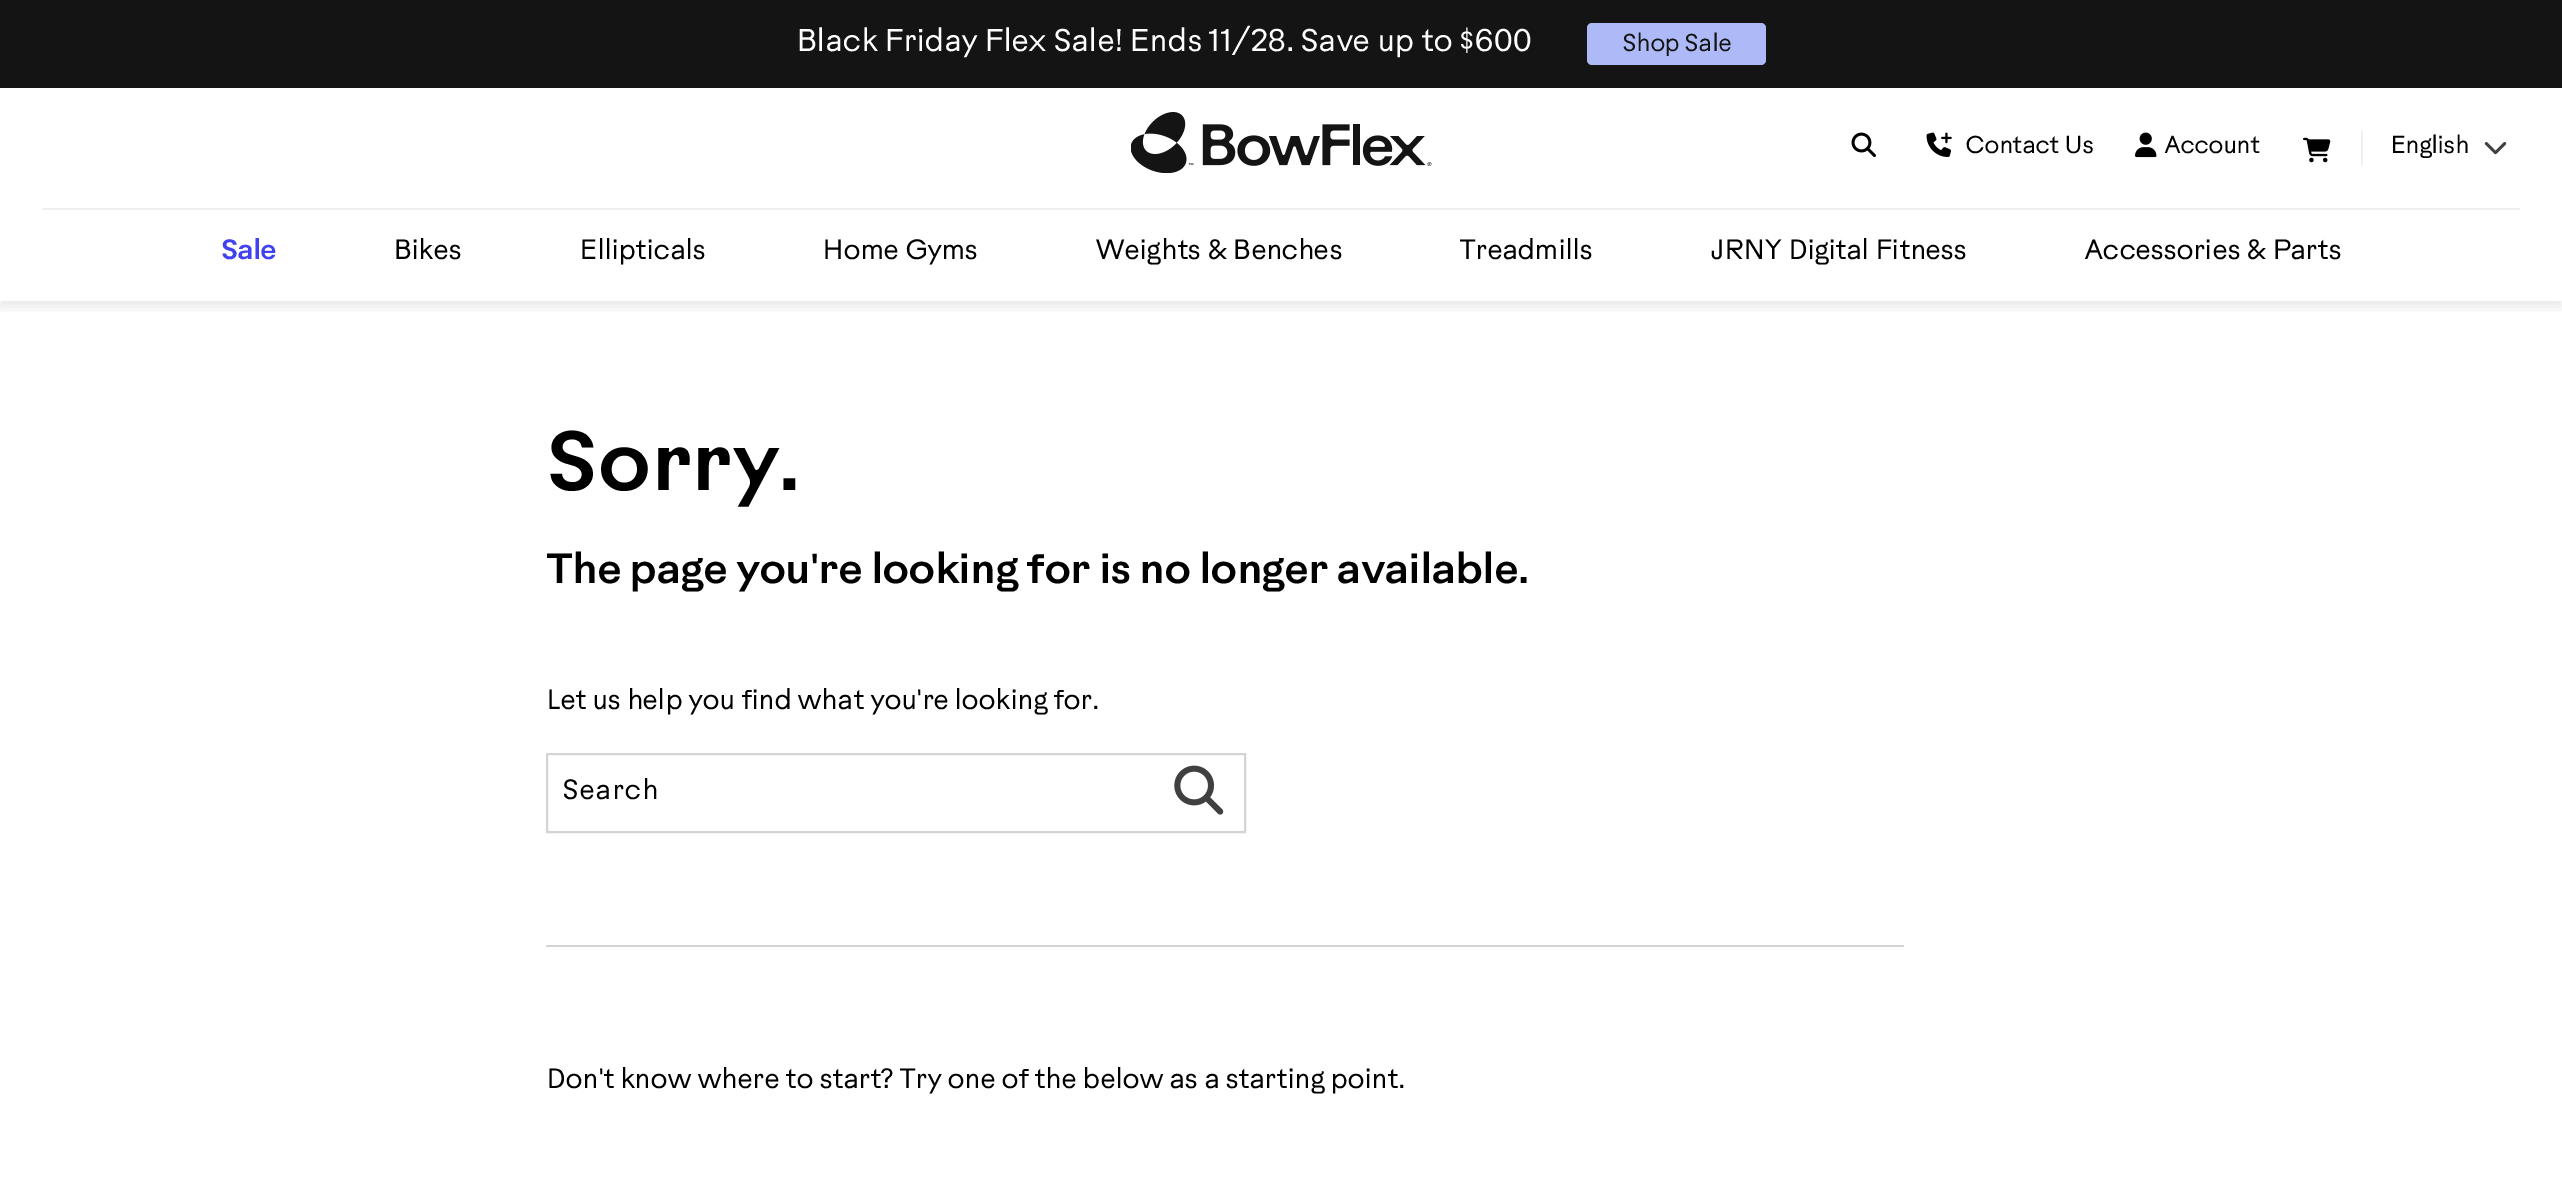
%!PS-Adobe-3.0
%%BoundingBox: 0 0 2562 1178
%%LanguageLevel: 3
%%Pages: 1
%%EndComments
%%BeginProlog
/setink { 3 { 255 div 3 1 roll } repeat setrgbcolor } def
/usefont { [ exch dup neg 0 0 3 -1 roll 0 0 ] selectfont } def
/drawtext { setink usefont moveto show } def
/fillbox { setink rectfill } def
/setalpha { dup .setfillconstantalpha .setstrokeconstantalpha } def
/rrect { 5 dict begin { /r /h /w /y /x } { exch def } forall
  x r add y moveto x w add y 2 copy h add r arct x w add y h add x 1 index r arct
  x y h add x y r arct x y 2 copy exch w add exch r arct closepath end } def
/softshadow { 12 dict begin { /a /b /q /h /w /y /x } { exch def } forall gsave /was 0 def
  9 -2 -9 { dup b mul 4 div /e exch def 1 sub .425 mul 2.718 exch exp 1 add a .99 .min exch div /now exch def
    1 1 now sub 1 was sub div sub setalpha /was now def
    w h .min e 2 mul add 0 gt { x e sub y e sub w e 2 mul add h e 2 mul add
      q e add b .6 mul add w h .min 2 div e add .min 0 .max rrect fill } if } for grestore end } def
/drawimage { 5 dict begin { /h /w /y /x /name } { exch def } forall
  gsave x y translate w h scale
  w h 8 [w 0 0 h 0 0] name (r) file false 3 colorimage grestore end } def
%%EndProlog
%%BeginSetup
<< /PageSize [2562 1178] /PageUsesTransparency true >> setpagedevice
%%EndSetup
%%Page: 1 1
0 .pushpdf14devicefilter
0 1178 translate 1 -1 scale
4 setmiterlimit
0 0 2562 1178 255 255 255 fillbox
gsave
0 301 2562 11 rectclip
0 0 0 setink
0 5 2562 301 0 7 0.1 softshadow
grestore
0 0 2562 88 20 20 20 fillbox
/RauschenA-Regular 31.5 usefont
255 255 255 setink
796 51 moveto -1.12 0 (Black Friday Flex Sale! Ends 11/28. Save up to $600) ashow
173 186 247 setink
1587 23 179 42 5 rrect fill
/RauschenA-Regular 24.5 usefont
20 20 20 setink
1622 51 moveto -1.12 0 (Shop Sale) ashow
42 208 2478 2 239 239 239 fillbox
(assets/img1.rgb) 1131 112 301 61 drawimage
(assets/img2.rgb) 1851 132 25 25 drawimage
(assets/img3.rgb) 1926 132 26 26 drawimage
0 0 0 setink
1965 153 moveto -1.12 0 (Contact Us) ashow
(assets/img4.rgb) 2135 132 22 26 drawimage
2164 153 moveto -1.12 0 (Account) ashow
(assets/img5.rgb) 2303 137 28 26 drawimage
2361 131 2 34 239 239 239 fillbox
0 0 0 setink
2390 153 moveto -1.12 0 (English) ashow
(assets/img6.rgb) 2484 142 23 13 drawimage
/RauschenA-Medium 28 usefont
64 65 241 setink
221 259 moveto -1.12 0 (Sale) ashow
/RauschenA-Regular 28 usefont
0 0 0 setink
393 259 moveto -1.12 0 (Bikes) ashow
579 259 moveto -1.12 0 (Ellipticals) ashow
822 259 moveto -1.12 0 (Home Gyms) ashow
1095 259 moveto -1.12 0 (Weights & Benches) ashow
1459 259 moveto -1.12 0 (Treadmills) ashow
1710 259 moveto -1.12 0 (JRNY Digital Fitness) ashow
2084 259 moveto -1.12 0 (Accessories & Parts) ashow
/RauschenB-Medium 84 usefont
546 490 moveto -1.12 0 (Sorry.) ashow
/RauschenA-Medium 42 usefont
546 583 moveto -1.12 0 (The page you're looking for is no longer available.) ashow
/RauschenA-Regular 28 usefont
546 709 moveto -1.12 0 (Let us help you find what you're looking for.) ashow
212 212 212 setink
2 setlinewidth
547 754 698 78 rectstroke
(Search) 562 799 /RauschenA-Regular 28 0 0 0 drawtext
(assets/img7.rgb) 1174 765 50 50 drawimage
546 945 1358 2 212 212 212 fillbox
0 0 0 setink
546 1088 moveto -1.12 0 (Don't know where to start? Try one of the below as a starting point.) ashow
.poppdf14devicefilter showpage
%%EOF
